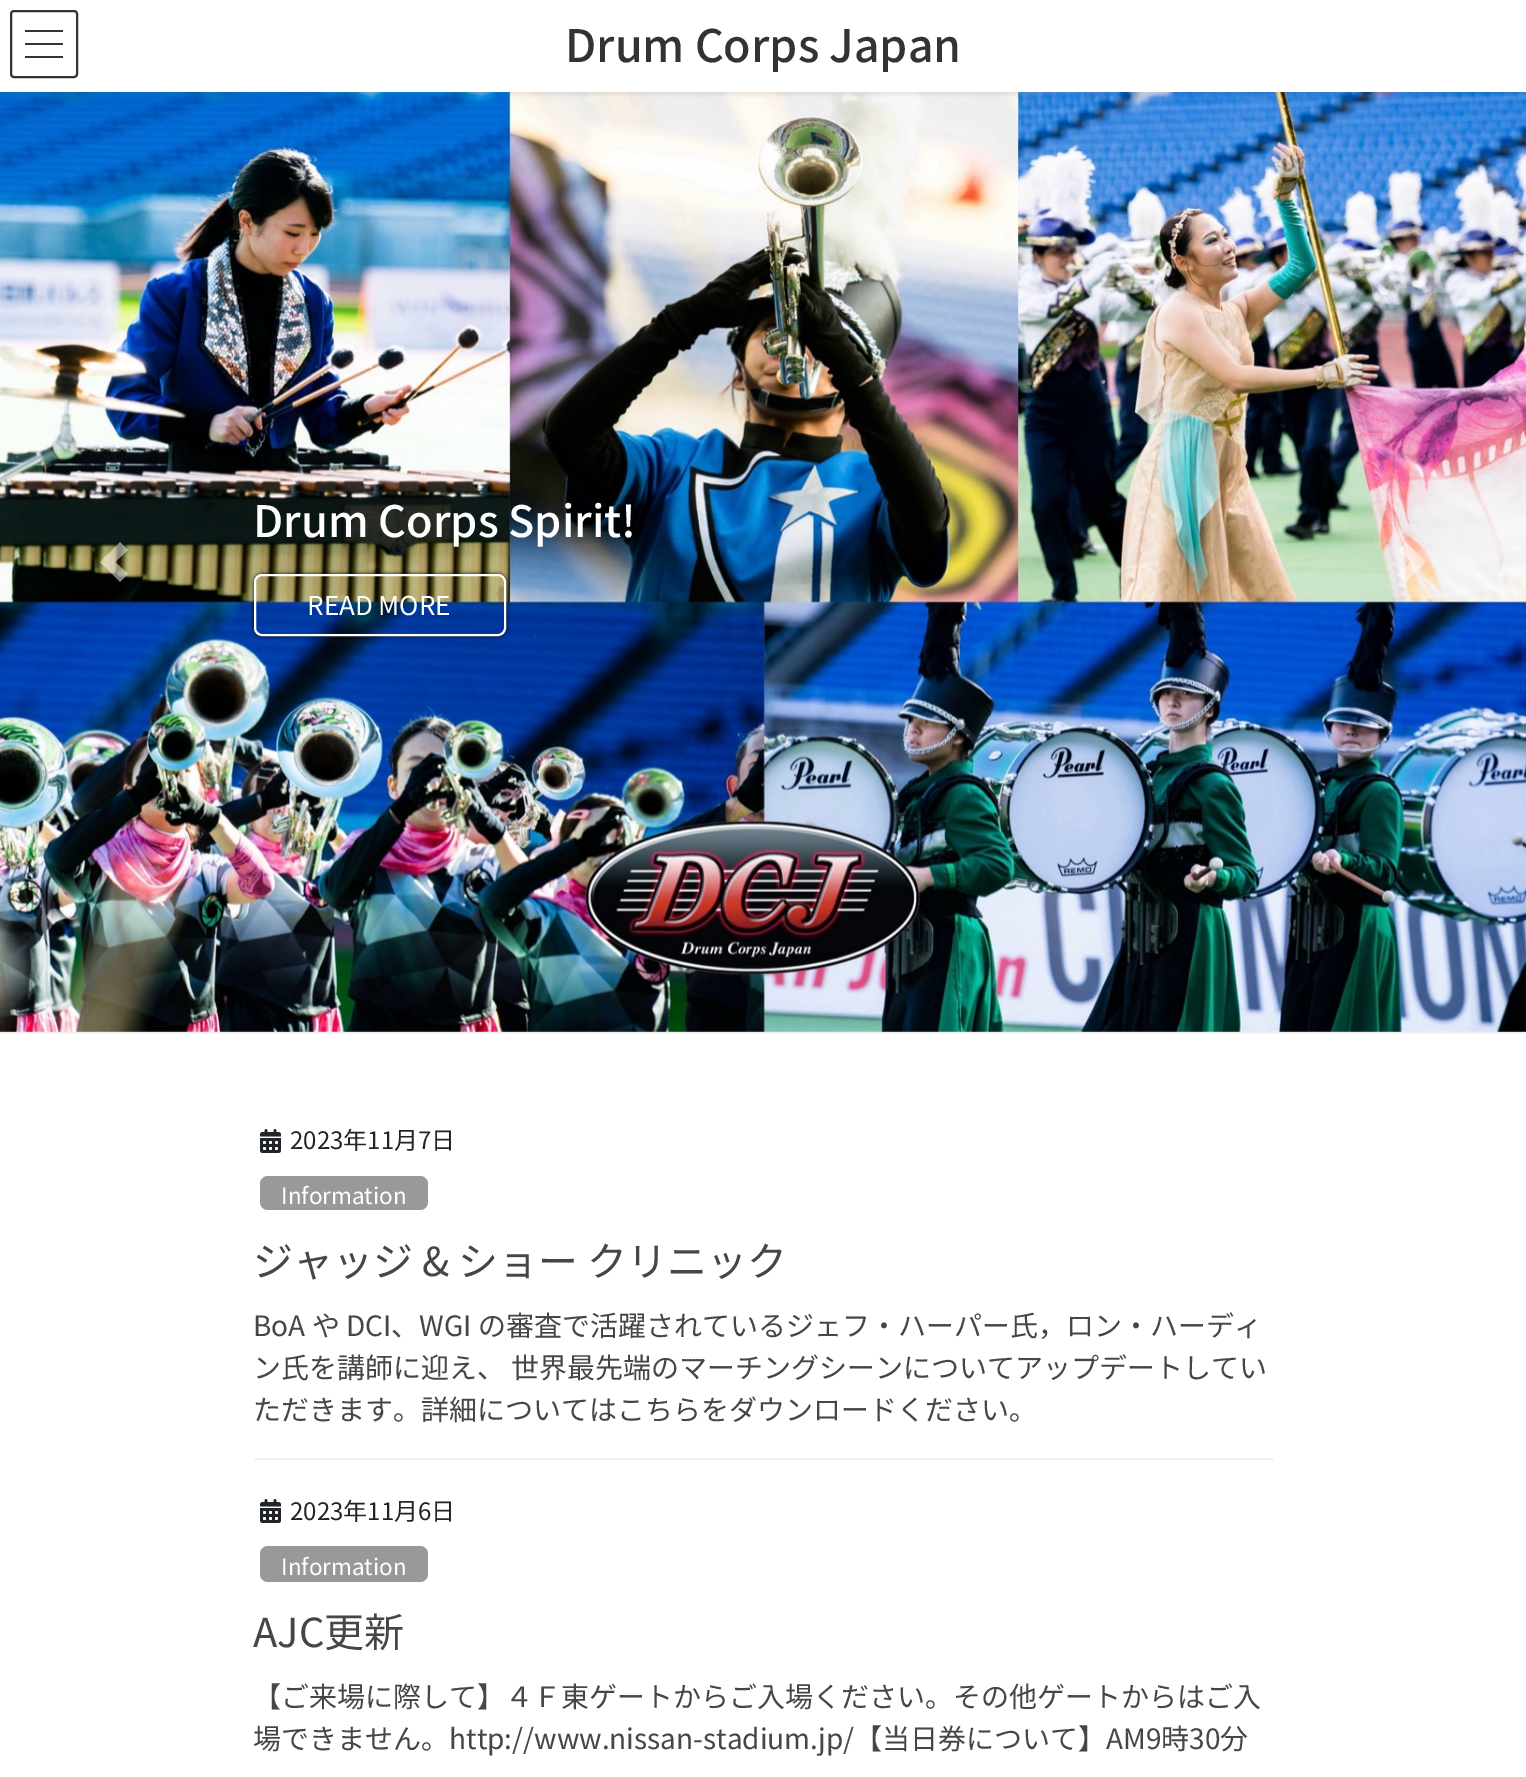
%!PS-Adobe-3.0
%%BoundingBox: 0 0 1526 1777
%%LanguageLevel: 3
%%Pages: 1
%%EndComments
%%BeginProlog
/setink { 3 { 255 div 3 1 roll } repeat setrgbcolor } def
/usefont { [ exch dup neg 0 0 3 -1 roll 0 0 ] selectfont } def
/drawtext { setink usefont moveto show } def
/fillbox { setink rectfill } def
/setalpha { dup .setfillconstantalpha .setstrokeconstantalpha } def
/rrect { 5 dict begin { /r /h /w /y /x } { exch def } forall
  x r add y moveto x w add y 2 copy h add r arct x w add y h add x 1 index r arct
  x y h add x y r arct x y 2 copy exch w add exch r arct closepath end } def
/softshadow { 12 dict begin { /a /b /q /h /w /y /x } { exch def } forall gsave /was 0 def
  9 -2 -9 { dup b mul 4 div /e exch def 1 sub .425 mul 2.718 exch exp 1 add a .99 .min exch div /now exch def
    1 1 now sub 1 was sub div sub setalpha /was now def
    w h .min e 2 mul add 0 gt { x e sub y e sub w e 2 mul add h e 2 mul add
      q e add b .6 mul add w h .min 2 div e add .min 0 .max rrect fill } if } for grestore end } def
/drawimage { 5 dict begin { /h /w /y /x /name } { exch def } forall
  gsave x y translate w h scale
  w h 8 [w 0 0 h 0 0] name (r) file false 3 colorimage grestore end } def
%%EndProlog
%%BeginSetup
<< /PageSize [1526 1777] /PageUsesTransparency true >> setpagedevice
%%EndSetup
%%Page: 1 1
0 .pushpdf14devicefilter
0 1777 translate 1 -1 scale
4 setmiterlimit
0 0 1526 1777 255 255 255 fillbox
(assets/img1.rgb) 0 92 1526 940 drawimage
gsave
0 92 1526 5 rectclip
0 0 0 setink
0 2 1526 92 0 3 0.1 softshadow
grestore
25 30 38 2 51 51 51 fillbox
25 43 38 2 51 51 51 fillbox
25 56 38 2 51 51 51 fillbox
2 setlinewidth
11 11 66 66 3 rrect stroke
(Drum Corps Japan) 565 62 /NotoSansJP-Medium 44.75 51 51 51 drawtext
0 1032 1526 2 242 242 242 fillbox
0.5 setalpha
255 255 255 setink
120 542 moveto 100 562 lineto 120 582 lineto 128 574 lineto 115 562 lineto 128 550 lineto closepath fill
1 setalpha
(Drum Corps Spirit!) 253 537 /NotoSansJP-Medium 43.25 255 255 255 drawtext
gsave
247 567 moveto 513 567 lineto 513 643 lineto 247 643 lineto closepath 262 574 moveto 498 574 lineto 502.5 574 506 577.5 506 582 curveto 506 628 lineto 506 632.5 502.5 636 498 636 curveto 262 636 lineto 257.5 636 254 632.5 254 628 curveto 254 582 lineto 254 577.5 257.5 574 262 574 curveto closepath eoclip newpath
0 0 0 setink
254 574 252 62 8 2 1 softshadow
grestore
255 575 250 60 7 rrect stroke
(READ MORE) 307 615 /NotoSansJP-Regular 26 255 255 255 drawtext
0.5 setalpha
1406 542 moveto 1398 550 lineto 1411 562 lineto 1398 574 lineto 1406 582 lineto 1426 562 lineto closepath fill
1 setalpha
254 1458 1020 2 242 242 242 fillbox
(assets/img2.rgb) 260 1129 21 24 drawimage
(2023年11月7日) 290 1149 /NotoSansJP-Regular 24 33 37 41 drawtext
153 153 153 setink
260 1176 168 34 8 rrect fill
(Information) 281 1204 /NotoSansJP-Regular 22.5 255 255 255 drawtext
(ジャッジ & ショー クリニック) 253 1276 /NotoSansJP-Regular 40 70 70 70 drawtext
(BoA や DCI、WGI の審査で活躍されているジェフ・ハーパー氏，ロン・ハーディ) 253 1336 /NotoSansJP-Regular 28 70 70 70 drawtext
(ン氏を講師に迎え、 世界最先端のマーチングシーンについてアップデートしてい) 253 1378 /NotoSansJP-Regular 28 70 70 70 drawtext
(ただきます。詳細についてはこちらをダウンロードください。) 253 1420 /NotoSansJP-Regular 28 70 70 70 drawtext
(assets/img2.rgb) 260 1499 21 24 drawimage
(2023年11月6日) 290 1520 /NotoSansJP-Regular 24 33 37 41 drawtext
153 153 153 setink
260 1546 168 36 8 rrect fill
(Information) 281 1575 /NotoSansJP-Regular 22.5 255 255 255 drawtext
(AJC更新) 253 1647 /NotoSansJP-Regular 40 70 70 70 drawtext
(【ご来場に際して】４Ｆ東ゲートからご入場ください。その他ゲートからはご入) 253 1707 /NotoSansJP-Regular 28 70 70 70 drawtext
(場できません。http://www.nissan-stadium.jp/【当日券について】AM9時30分) 253 1749 /NotoSansJP-Regular 28 70 70 70 drawtext
.poppdf14devicefilter showpage
%%EOF
